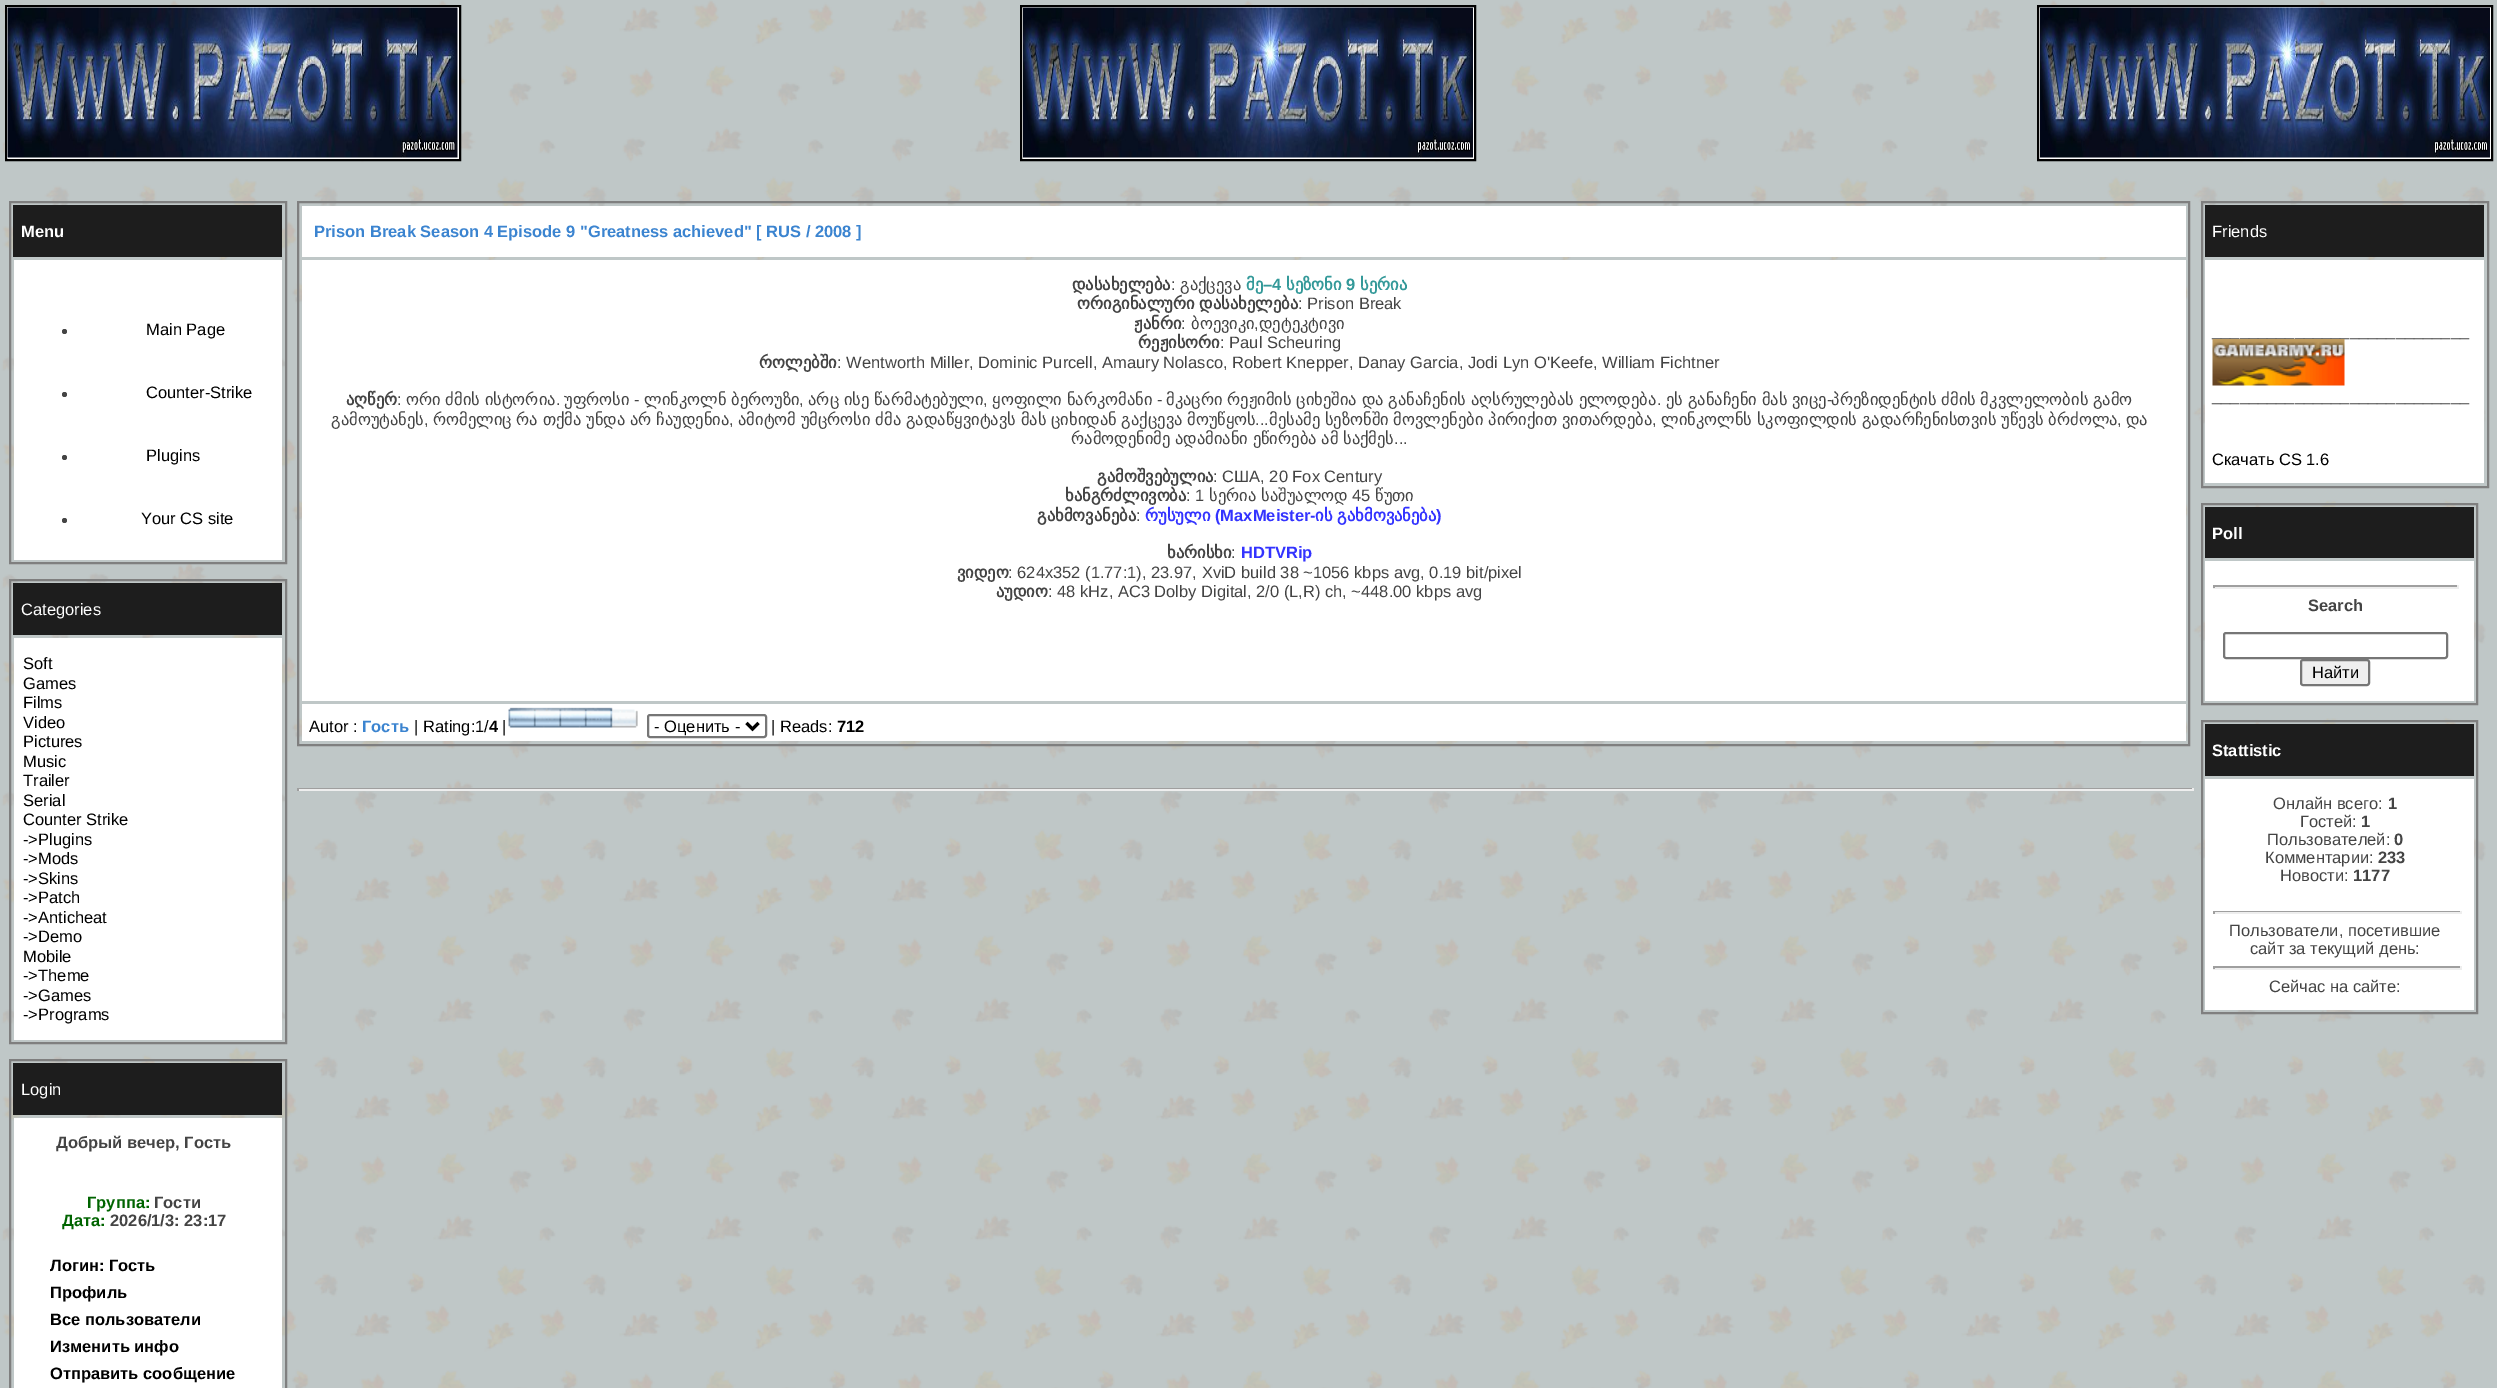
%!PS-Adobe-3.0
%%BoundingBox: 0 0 2497 1388
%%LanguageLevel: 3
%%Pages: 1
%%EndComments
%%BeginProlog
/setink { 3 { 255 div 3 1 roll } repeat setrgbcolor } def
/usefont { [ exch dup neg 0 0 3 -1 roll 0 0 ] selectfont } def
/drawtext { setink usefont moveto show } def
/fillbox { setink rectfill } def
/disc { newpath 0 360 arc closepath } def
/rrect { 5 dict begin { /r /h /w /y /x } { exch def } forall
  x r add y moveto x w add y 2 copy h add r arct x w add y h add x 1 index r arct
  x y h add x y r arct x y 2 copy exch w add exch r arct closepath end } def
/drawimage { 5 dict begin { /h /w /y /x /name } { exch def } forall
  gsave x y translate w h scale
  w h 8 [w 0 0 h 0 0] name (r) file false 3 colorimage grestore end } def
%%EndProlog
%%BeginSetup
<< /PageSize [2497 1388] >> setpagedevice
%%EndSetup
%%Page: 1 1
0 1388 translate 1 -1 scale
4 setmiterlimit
0 0 2497 1388 255 255 255 fillbox
(assets/img1.rgb) 0 0 2497 1388 drawimage
6 6 moveto 460 6 lineto 460 160 lineto 6 160 lineto closepath gsave fill grestore
0 0 0 setink
2 setlinewidth
stroke
(assets/img2.rgb) 7 7 451 151 drawimage
255 255 255 setink
1021 6 moveto 1475 6 lineto 1475 160 lineto 1021 160 lineto closepath gsave fill grestore
0 0 0 setink
stroke
(assets/img3.rgb) 1023 7 450 151 drawimage
255 255 255 setink
2038 6 moveto 2492 6 lineto 2492 160 lineto 2038 160 lineto closepath gsave fill grestore
0 0 0 setink
stroke
(assets/img3.rgb) 2040 7 450 151 drawimage
127 127 127 setink
10 202 276 361 rectstroke
13 205 269 52 29 29 29 fillbox
(Menu) 21 237 /LiberationSans-Bold 16.5 255 255 255 drawtext
14 260 268 300 255 255 255 fillbox
68 68 68 setink
64.5 331.5 2.5 disc fill
(Main Page) 146 335 /LiberationSans-Regular 16.5 0 0 0 drawtext
68 68 68 setink
64.5 394.5 2.5 disc fill
(Counter-Strike) 146 398 /LiberationSans-Regular 16.5 0 0 0 drawtext
68 68 68 setink
64.5 457.5 2.5 disc fill
(Plugins) 146 461 /LiberationSans-Regular 16.5 0 0 0 drawtext
68 68 68 setink
64.5 520.5 2.5 disc fill
(Your CS site) 141 524 /LiberationSans-Regular 16.5 0 0 0 drawtext
127 127 127 setink
10 580 276 463 rectstroke
13 583 269 52 29 29 29 fillbox
(Categories) 21 615 /LiberationSans-Regular 16.5 255 255 255 drawtext
14 638 268 402 255 255 255 fillbox
(Soft) 23 669 /LiberationSans-Regular 16.5 0 0 0 drawtext
(Games) 23 689 /LiberationSans-Regular 16.5 0 0 0 drawtext
(Films) 23 708 /LiberationSans-Regular 16.5 0 0 0 drawtext
(Video) 23 728 /LiberationSans-Regular 16.5 0 0 0 drawtext
(Pictures) 23 747 /LiberationSans-Regular 16.5 0 0 0 drawtext
(Music) 23 767 /LiberationSans-Regular 16.5 0 0 0 drawtext
(Trailer) 23 786 /LiberationSans-Regular 16.5 0 0 0 drawtext
(Serial) 23 806 /LiberationSans-Regular 16.5 0 0 0 drawtext
(Counter Strike) 23 825 /LiberationSans-Regular 16.5 0 0 0 drawtext
(->Plugins) 23 845 /LiberationSans-Regular 16.5 0 0 0 drawtext
(->Mods) 23 864 /LiberationSans-Regular 16.5 0 0 0 drawtext
(->Skins) 23 884 /LiberationSans-Regular 16.5 0 0 0 drawtext
(->Patch) 23 903 /LiberationSans-Regular 16.5 0 0 0 drawtext
(->Anticheat) 23 923 /LiberationSans-Regular 16.5 0 0 0 drawtext
(->Demo) 23 942 /LiberationSans-Regular 16.5 0 0 0 drawtext
(Mobile) 23 962 /LiberationSans-Regular 16.5 0 0 0 drawtext
(->Theme) 23 981 /LiberationSans-Regular 16.5 0 0 0 drawtext
(->Games) 23 1001 /LiberationSans-Regular 16.5 0 0 0 drawtext
(->Programs) 23 1020 /LiberationSans-Regular 16.5 0 0 0 drawtext
127 127 127 setink
10 1060 276 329 rectstroke
13 1063 269 52 29 29 29 fillbox
(Login) 21 1095 /LiberationSans-Regular 16.5 255 255 255 drawtext
14 1118 268 270 255 255 255 fillbox
(Добрый вечер, Гость) 56 1148 /LiberationSans-Bold 16.5 68 68 68 drawtext
(Группа:) 87 1208 /LiberationSans-Bold 16.5 0 100 0 drawtext
(Гости) 154 1208 /LiberationSans-Bold 16.5 68 68 68 drawtext
(Дата:) 62 1226 /LiberationSans-Bold 16.5 0 100 0 drawtext
(2026/1/3: 23:17) 110 1226 /LiberationSans-Bold 16.5 68 68 68 drawtext
(Логин: Гость) 50 1271 /LiberationSans-Bold 16.5 0 0 0 drawtext
(Профиль) 50 1298 /LiberationSans-Bold 16.5 0 0 0 drawtext
(Все пользователи) 50 1325 /LiberationSans-Bold 16.5 0 0 0 drawtext
(Изменить инфо) 50 1352 /LiberationSans-Bold 16.5 0 0 0 drawtext
(Отправить сообщение) 50 1379 /LiberationSans-Bold 16.5 0 0 0 drawtext
127 127 127 setink
298 202 1891 543 rectstroke
302 206 1884 51 255 255 255 fillbox
(Prison Break Season 4 Episode 9 "Greatness achieved" [ RUS / 2008 ]) 314 237 /LiberationSans-Bold 16.5 59 132 208 drawtext
302 260 1884 441 255 255 255 fillbox
(დასახელება) 1072 290 /DejaVuSans-Bold 16.5 68 68 68 drawtext
(:) 1171 290 /LiberationSans-Regular 16.5 68 68 68 drawtext
(გაქცევა) 1180 290 /DejaVuSans-Regular 16.5 68 68 68 drawtext
(მე) 1246 290 /DejaVuSans-Bold 16.5 51 153 153 drawtext
(–4) 1263 290 /LiberationSans-Bold 16.5 51 153 153 drawtext
(სეზონი) 1286 290 /DejaVuSans-Bold 16.5 51 153 153 drawtext
(9) 1346 290 /LiberationSans-Bold 16.5 51 153 153 drawtext
(სერია) 1360 290 /DejaVuSans-Bold 16.5 51 153 153 drawtext
68 68 68 setink
1077 309 moveto -0.5 0 32 (ორიგინალური დასახელება) widthshow
(: Prison Break) 1298 309 /LiberationSans-Regular 16.5 68 68 68 drawtext
(ჟანრი) 1134 329 /DejaVuSans-Bold 16.5 68 68 68 drawtext
(:) 1181 329 /LiberationSans-Regular 16.5 68 68 68 drawtext
(ბოევიკი) 1191 329 /DejaVuSans-Regular 16.5 68 68 68 drawtext
(დეტეკტივი) 1259 329 /DejaVuSans-Regular 16.5 68 68 68 drawtext
(,) 1254 329 /LiberationSans-Regular 16.5 68 68 68 drawtext
(რეჟისორი) 1138 348 /DejaVuSans-Bold 16.5 68 68 68 drawtext
(: Paul Scheuring) 1220 348 /LiberationSans-Regular 16.5 68 68 68 drawtext
(როლებში) 759 368 /DejaVuSans-Bold 16.5 68 68 68 drawtext
(: Wentworth Miller, Dominic Purcell, Amaury Nolasco, Robert Knepper, Danay Garcia, Jodi Lyn O'Keefe, William Fichtner) 837 368 /LiberationSans-Regular 16.5 68 68 68 drawtext
(აღწერ) 346 405 /DejaVuSans-Bold 16.5 68 68 68 drawtext
(:) 397 405 /LiberationSans-Regular 16.5 68 68 68 drawtext
/DejaVuSans-Regular 16.5 usefont
406 405 moveto -0.5 0 32 (ორი ძმის ისტორია) widthshow
(უფროსი) 564 405 /DejaVuSans-Regular 16.5 68 68 68 drawtext
(-) 634 405 /LiberationSans-Regular 16.5 68 68 68 drawtext
/DejaVuSans-Regular 16.5 usefont
644 405 moveto -0.5 0 32 (ლინკოლნ ბეროუზი) widthshow
808 405 moveto -0.5 0 32 (არც ისე წარმატებული) widthshow
992 405 moveto -0.5 0 32 (ყოფილი ნარკომანი) widthshow
(-) 1157 405 /LiberationSans-Regular 16.5 68 68 68 drawtext
/DejaVuSans-Regular 16.5 usefont
1166 405 moveto -0.5 0 32 (მკაცრი რეჟიმის ციხეშია და განაჩენის აღსრულებას ელოდება) widthshow
1666 405 moveto -0.5 0 32 (ეს განაჩენი მას ვიცე პრეზიდენტის ძმის მკვლელობის გამო) widthshow
(-) 1827 405 /LiberationSans-Regular 16.5 68 68 68 drawtext
(.) 556 405 /LiberationSans-Regular 16.5 68 68 68 drawtext
(,) 799 405 /LiberationSans-Regular 16.5 68 68 68 drawtext
(,) 983 405 /LiberationSans-Regular 16.5 68 68 68 drawtext
(.) 1657 405 /LiberationSans-Regular 16.5 68 68 68 drawtext
(გამოუტანეს) 331 425 /DejaVuSans-Regular 16.5 68 68 68 drawtext
(,) 424 425 /LiberationSans-Regular 16.5 68 68 68 drawtext
/DejaVuSans-Regular 16.5 usefont
433 425 moveto -0.5 0 32 (რომელიც რა თქმა უნდა არ ჩაუდენია) widthshow
(,) 729 425 /LiberationSans-Regular 16.5 68 68 68 drawtext
/DejaVuSans-Regular 16.5 usefont
738 425 moveto -0.5 0 32 (ამიტომ უმცროსი ძმა გადაწყვიტავს მას ციხიდან გაქცევა მოუწყოს) widthshow
(...) 1255 425 /LiberationSans-Regular 16.5 68 68 68 drawtext
/DejaVuSans-Regular 16.5 usefont
1269 425 moveto -0.5 0 32 (მესამე სეზონში მოვლენები პირიქით ვითარდება) widthshow
(,) 1652 425 /LiberationSans-Regular 16.5 68 68 68 drawtext
/DejaVuSans-Regular 16.5 usefont
1661 425 moveto -0.5 0 32 (ლინკოლნს სკოფილდის გადარჩენისთვის უწევს ბრძოლა) widthshow
(,) 2117 425 /LiberationSans-Regular 16.5 68 68 68 drawtext
(და) 2126 425 /DejaVuSans-Regular 16.5 68 68 68 drawtext
1071 444 moveto -0.5 0 32 (რამოდენიმე ადამიანი ეწირება ამ საქმეს) widthshow
(...) 1394 444 /LiberationSans-Regular 16.5 68 68 68 drawtext
(გამოშვებულია) 1097 482 /DejaVuSans-Bold 16.5 68 68 68 drawtext
(: США, 20 Fox Century) 1213 482 /LiberationSans-Regular 16.5 68 68 68 drawtext
(ხანგრძლივობა) 1065 501 /DejaVuSans-Bold 16.5 68 68 68 drawtext
(: 1) 1186 501 /LiberationSans-Regular 16.5 68 68 68 drawtext
(სერია) 1209 501 /DejaVuSans-Regular 16.5 68 68 68 drawtext
(საშუალოდ) 1261 501 /DejaVuSans-Regular 16.5 68 68 68 drawtext
(45) 1352 501 /LiberationSans-Regular 16.5 68 68 68 drawtext
(წუთი) 1375 501 /DejaVuSans-Regular 16.5 68 68 68 drawtext
(გახმოვანება) 1037 521 /DejaVuSans-Bold 16.5 68 68 68 drawtext
(:) 1136 521 /LiberationSans-Regular 16.5 68 68 68 drawtext
(რუსული) 1145 521 /DejaVuSans-Bold 16.5 51 51 255 drawtext
(\(MaxMeister-) 1215 521 /LiberationSans-Bold 16.5 51 51 255 drawtext
(ის გახმოვანება) 1315 521 /DejaVuSans-Bold 16.5 51 51 255 drawtext
(\)) 1436 521 /LiberationSans-Bold 16.5 51 51 255 drawtext
(ხარისხი) 1167 558 /DejaVuSans-Bold 16.5 68 68 68 drawtext
(:) 1231 558 /LiberationSans-Regular 16.5 68 68 68 drawtext
(HDTVRip) 1241 558 /LiberationSans-Bold 16.5 51 51 255 drawtext
(ვიდეო) 957 578 /DejaVuSans-Bold 16.5 68 68 68 drawtext
(: 624x352 \(1.77:1\), 23.97, XviD build 38 ~1056 kbps avg, 0.19 bit/pixel) 1008 578 /LiberationSans-Regular 16.5 68 68 68 drawtext
(აუდიო) 996 597 /DejaVuSans-Bold 16.5 68 68 68 drawtext
(: 48 kHz, AC3 Dolby Digital, 2/0 \(L,R\) ch, ~448.00 kbps avg) 1048 597 /LiberationSans-Regular 16.5 68 68 68 drawtext
302 704 1884 37 255 255 255 fillbox
(Autor :) 309 732 /LiberationSans-Regular 16.5 0 0 0 drawtext
(Гость) 362 732 /LiberationSans-Bold 16.5 59 132 208 drawtext
(| Rating:1/) 414 732 /LiberationSans-Regular 16.5 0 0 0 drawtext
(4) 489 732 /LiberationSans-Bold 16.5 0 0 0 drawtext
(|) 502 732 /LiberationSans-Regular 16.5 0 0 0 drawtext
(assets/img4.rgb) 508 707 130 21 drawimage
118 118 118 setink
648 715 118 22 2 rrect stroke
0 0 0 setink
3 setlinewidth
746.5 723 moveto 752.5 729 lineto 758.5 723 lineto stroke
(- Оценить -) 654 732 /LiberationSans-Regular 16.5 0 0 0 drawtext
(| Reads:) 771 732 /LiberationSans-Regular 16.5 0 0 0 drawtext
(712) 837 732 /LiberationSans-Bold 16.5 0 0 0 drawtext
297 788 1896 1 159 159 159 fillbox
2192 788 2 3 238 238 238 fillbox
297 789 1896 2 238 238 238 fillbox
297 788 2 3 159 159 159 fillbox
127 127 127 setink
2 setlinewidth
2202 202 286 285 rectstroke
2205 205 279 52 29 29 29 fillbox
(Friends) 2212 237 /LiberationSans-Regular 16.5 255 255 255 drawtext
2205 260 279 223 255 255 255 fillbox
(____________________________) 2212 336 /LiberationSans-Regular 16.5 68 68 68 drawtext
(assets/img5.rgb) 2212 339 133 47 drawimage
(____________________________) 2212 401 /LiberationSans-Regular 16.5 68 68 68 drawtext
(Скачать CS 1.6) 2212 465 /LiberationSans-Regular 16.5 0 0 0 drawtext
127 127 127 setink
2202 504 275 200 rectstroke
2205 507 269 51 29 29 29 fillbox
(Poll) 2212 539 /LiberationSans-Bold 16.5 255 255 255 drawtext
2205 561 269 140 255 255 255 fillbox
2213 585 246 2 159 159 159 fillbox
2457 585 2 3 238 238 238 fillbox
2213 587 246 2 238 238 238 fillbox
2213 585 2 3 159 159 159 fillbox
(Search) 2308 611 /LiberationSans-Bold 16.5 68 68 68 drawtext
118 118 118 setink
2224 633 223 25 2 rrect stroke
239 239 239 setink
2301 660 68 25 2 rrect gsave fill grestore
118 118 118 setink
stroke
(Найти) 2312 678 /LiberationSans-Regular 16.5 0 0 0 drawtext
127 127 127 setink
2202 721 275 292 rectstroke
2205 724 269 52 29 29 29 fillbox
(Stattistic) 2212 756 /LiberationSans-Bold 16.5 255 255 255 drawtext
2205 779 269 231 255 255 255 fillbox
(Онлайн всего:) 2273 809 /LiberationSans-Regular 16.5 68 68 68 drawtext
(1) 2388 809 /LiberationSans-Bold 16.5 68 68 68 drawtext
(Гостей:) 2300 827 /LiberationSans-Regular 16.5 68 68 68 drawtext
(1) 2361 827 /LiberationSans-Bold 16.5 68 68 68 drawtext
(Пользователей:) 2267 845 /LiberationSans-Regular 16.5 68 68 68 drawtext
(0) 2394 845 /LiberationSans-Bold 16.5 68 68 68 drawtext
(Комментарии:) 2265 863 /LiberationSans-Regular 16.5 68 68 68 drawtext
(233) 2378 863 /LiberationSans-Bold 16.5 68 68 68 drawtext
(Новости:) 2280 881 /LiberationSans-Regular 16.5 68 68 68 drawtext
(1177) 2353 881 /LiberationSans-Bold 16.5 68 68 68 drawtext
2213 911 249 1 159 159 159 fillbox
2460 911 2 3 238 238 238 fillbox
2213 912 249 2 238 238 238 fillbox
2213 911 2 3 159 159 159 fillbox
(Пользователи, посетившие) 2229 936 /LiberationSans-Regular 16.5 68 68 68 drawtext
(сайт за текущий день:) 2250 954 /LiberationSans-Regular 16.5 68 68 68 drawtext
2213 966 249 2 159 159 159 fillbox
2460 966 2 3 238 238 238 fillbox
2213 968 249 2 238 238 238 fillbox
2213 966 2 3 159 159 159 fillbox
(Сейчас на сайте:) 2269 992 /LiberationSans-Regular 16.5 68 68 68 drawtext
showpage
%%EOF
